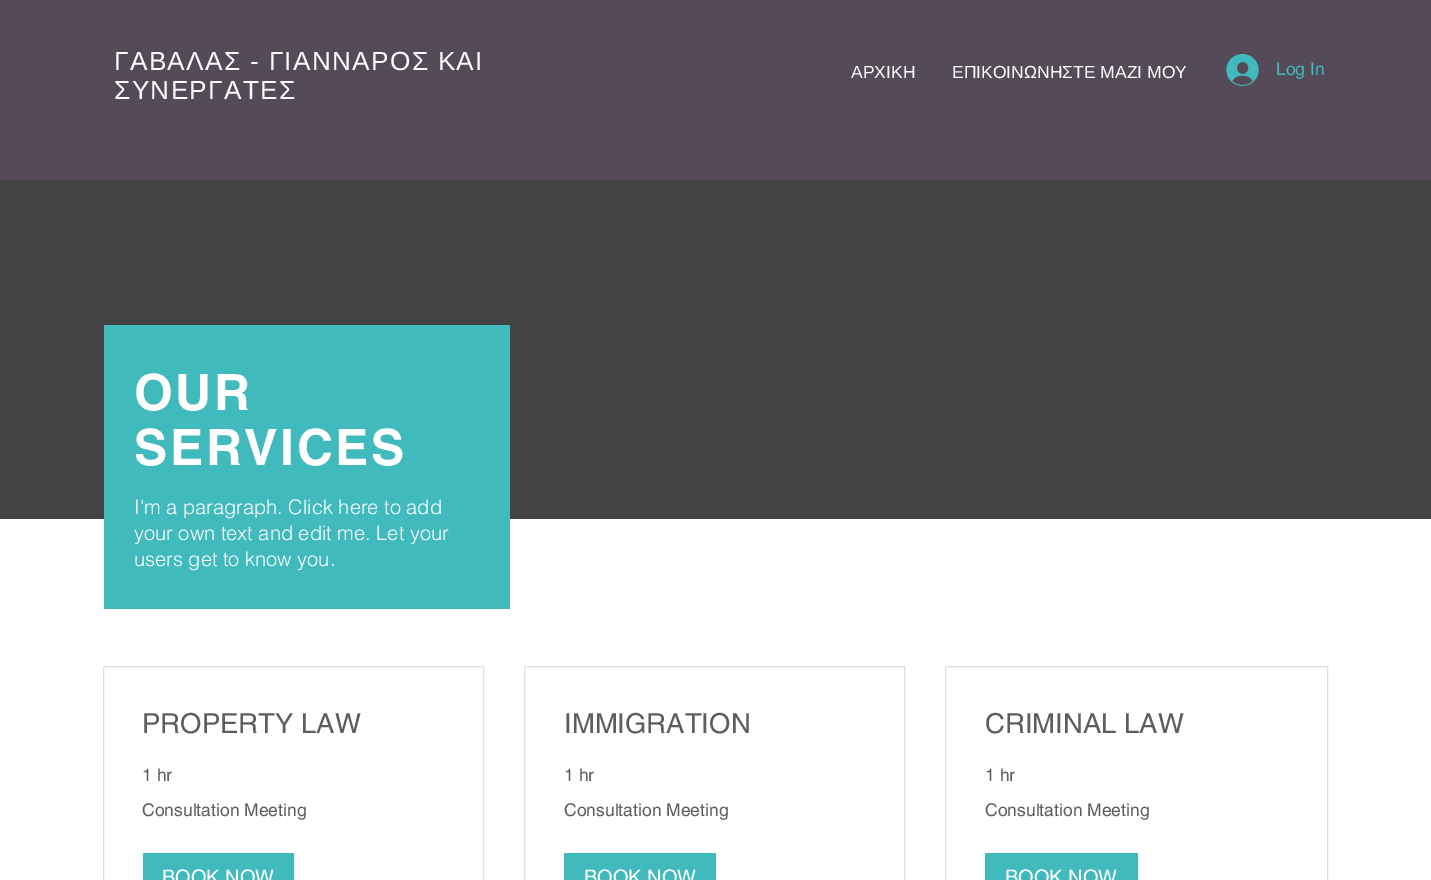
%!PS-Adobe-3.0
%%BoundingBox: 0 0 1431 880
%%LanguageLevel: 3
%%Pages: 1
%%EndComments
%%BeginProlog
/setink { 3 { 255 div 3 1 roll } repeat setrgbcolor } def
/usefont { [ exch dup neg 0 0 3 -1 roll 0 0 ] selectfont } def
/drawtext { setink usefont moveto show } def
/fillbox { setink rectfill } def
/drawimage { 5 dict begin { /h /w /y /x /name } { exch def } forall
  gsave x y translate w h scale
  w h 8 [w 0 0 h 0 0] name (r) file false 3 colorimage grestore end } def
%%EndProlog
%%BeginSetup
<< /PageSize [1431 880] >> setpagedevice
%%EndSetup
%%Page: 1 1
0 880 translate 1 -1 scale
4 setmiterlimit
0 0 1431 880 255 255 255 fillbox
0 0 1431 180 85 74 88 fillbox
/LiberationSans-Regular 26.25 usefont
255 255 255 setink
114 70 moveto 1.3 0 (ΓΑΒΑΛΑΣ - ΓΙΑΝΝΑΡΟΣ ΚΑΙ) ashow
114 99 moveto 1.3 0 (ΣΥΝΕΡΓΑΤΕΣ) ashow
(ΑΡΧΙΚΗ) 851 78 /LiberationSans-Regular 17.5 255 255 255 drawtext
(ΕΠΙΚΟΙΝΩΝΗΣΤΕ ΜΑΖΙ ΜΟΥ) 952 78 /LiberationSans-Regular 17.5 255 255 255 drawtext
(assets/img1.rgb) 1226 54 33 32 drawimage
(Log In) 1276 75 /helvetica-Regular 17.5 64 186 188 drawtext
0 180 1431 339 67 67 67 fillbox
104 325 406 284 64 186 188 fillbox
/helvetica-Bold 50 usefont
255 255 255 setink
134 410 moveto 2.5 0 (OUR) ashow
134 465 moveto 2.5 0 (SERVICES) ashow
(I'm a paragraph. Click here to add) 134 514 /helvetica-Light 20 255 255 255 drawtext
(your own text and edit me. Let your) 134 540 /helvetica-Light 20 255 255 255 drawtext
(users get to know you.) 134 566 /helvetica-Light 20 255 255 255 drawtext
223 223 223 setink
103.5 666.5 380 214 rectstroke
(PROPERTY LAW) 142 733 /helvetica-Regular 27.5 93 93 93 drawtext
(1 hr) 142 781 /helvetica-Regular 17.5 93 93 93 drawtext
(Consultation Meeting) 142 816 /helvetica-Regular 17.5 93 93 93 drawtext
143 853 151 27 64 186 188 fillbox
(BOOK NOW) 162 884 /helvetica-Regular 20 255 255 255 drawtext
223 223 223 setink
524.5 666.5 380 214 rectstroke
(IMMIGRATION) 564 733 /helvetica-Regular 27.5 93 93 93 drawtext
(1 hr) 564 781 /helvetica-Regular 17.5 93 93 93 drawtext
(Consultation Meeting) 564 816 /helvetica-Regular 17.5 93 93 93 drawtext
564 853 152 27 64 186 188 fillbox
(BOOK NOW) 584 884 /helvetica-Regular 20 255 255 255 drawtext
223 223 223 setink
945.5 666.5 382 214 rectstroke
(CRIMINAL LAW) 985 733 /helvetica-Regular 27.5 93 93 93 drawtext
(1 hr) 985 781 /helvetica-Regular 17.5 93 93 93 drawtext
(Consultation Meeting) 985 816 /helvetica-Regular 17.5 93 93 93 drawtext
985 853 153 27 64 186 188 fillbox
(BOOK NOW) 1005 884 /helvetica-Regular 20 255 255 255 drawtext
showpage
%%EOF
